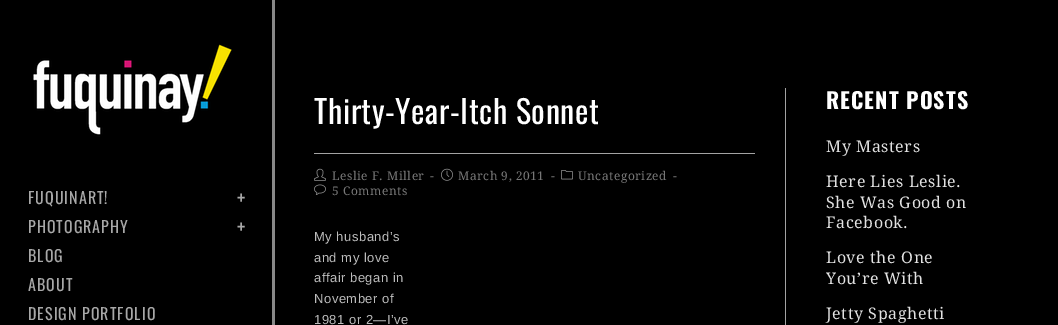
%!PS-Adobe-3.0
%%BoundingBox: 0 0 1058 325
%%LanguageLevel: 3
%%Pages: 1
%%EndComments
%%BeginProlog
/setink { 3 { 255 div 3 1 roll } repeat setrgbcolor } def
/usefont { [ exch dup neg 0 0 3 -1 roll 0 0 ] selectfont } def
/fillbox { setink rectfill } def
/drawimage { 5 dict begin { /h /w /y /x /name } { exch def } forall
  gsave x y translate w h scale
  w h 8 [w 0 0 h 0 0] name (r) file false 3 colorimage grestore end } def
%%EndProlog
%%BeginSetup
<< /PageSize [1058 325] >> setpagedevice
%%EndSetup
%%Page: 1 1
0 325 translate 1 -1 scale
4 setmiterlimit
0 0 1058 325 0 0 0 fillbox
272 0 3 325 136 136 136 fillbox
(assets/img1.rgb) 33 44 199 93 drawimage
/Oswald-Regular 16 usefont
168 168 168 setink
28 204 moveto 1 0 (FUQUINART!) ashow
/Oswald-Regular 20 usefont
237 206 moveto 1 0 (+) ashow
/Oswald-Regular 16 usefont
28 233 moveto 1 0 (PHOTOGRAPHY) ashow
/Oswald-Regular 20 usefont
237 235 moveto 1 0 (+) ashow
/Oswald-Regular 16 usefont
28 262 moveto 1 0 (BLOG) ashow
28 291 moveto 1 0 (ABOUT) ashow
28 320 moveto 1 0 (DESIGN PORTFOLIO) ashow
785 88 1 237 163 163 163 fillbox
314 153 441 1 163 163 163 fillbox
/Oswald-Regular 32 usefont
255 255 255 setink
314 124 moveto 0.6 0 (Thirty-Year-Itch Sonnet) ashow
(assets/img2.rgb) 314 168 12 13 drawimage
/DroidSerif-Regular 12 usefont
119 119 119 setink
332 180 moveto 0.5 0 (Leslie F. Miller) ashow
430 180 moveto 0.5 0 (-) ashow
(assets/img3.rgb) 441 168 12 13 drawimage
458 180 moveto 0.5 0 (March 9, 2011) ashow
551 180 moveto 0.5 0 (-) ashow
(assets/img4.rgb) 561 170 12 10 drawimage
578 180 moveto 0.5 0 (Uncategorized) ashow
673 180 moveto 0.5 0 (-) ashow
(assets/img5.rgb) 314 184 12 11 drawimage
332 195 moveto 0.5 0 (5 Comments) ashow
/LiberationSans-Regular 13 usefont
188 188 188 setink
314 241 moveto 0.5 0 (My husband’s) ashow
314 262 moveto 0.5 0 (and my love) ashow
314 282 moveto 0.5 0 (affair began in) ashow
314 303 moveto 0.5 0 (November of) ashow
314 324 moveto 0.5 0 (1981 or 2—I’ve) ashow
/Oswald-Bold 22 usefont
255 255 255 setink
826 109 moveto 1 0 (RECENT POSTS) ashow
/DroidSerif-Regular 16 usefont
226 226 226 setink
826 152 moveto 0.6 0 (My Masters) ashow
826 187 moveto 0.6 0 (Here Lies Leslie.) ashow
826 208 moveto 0.6 0 (She Was Good on) ashow
826 228 moveto 0.6 0 (Facebook.) ashow
826 263 moveto 0.6 0 (Love the One) ashow
826 284 moveto 0.6 0 (You’re With) ashow
826 319 moveto 0.6 0 (Jetty Spaghetti) ashow
showpage
%%EOF
